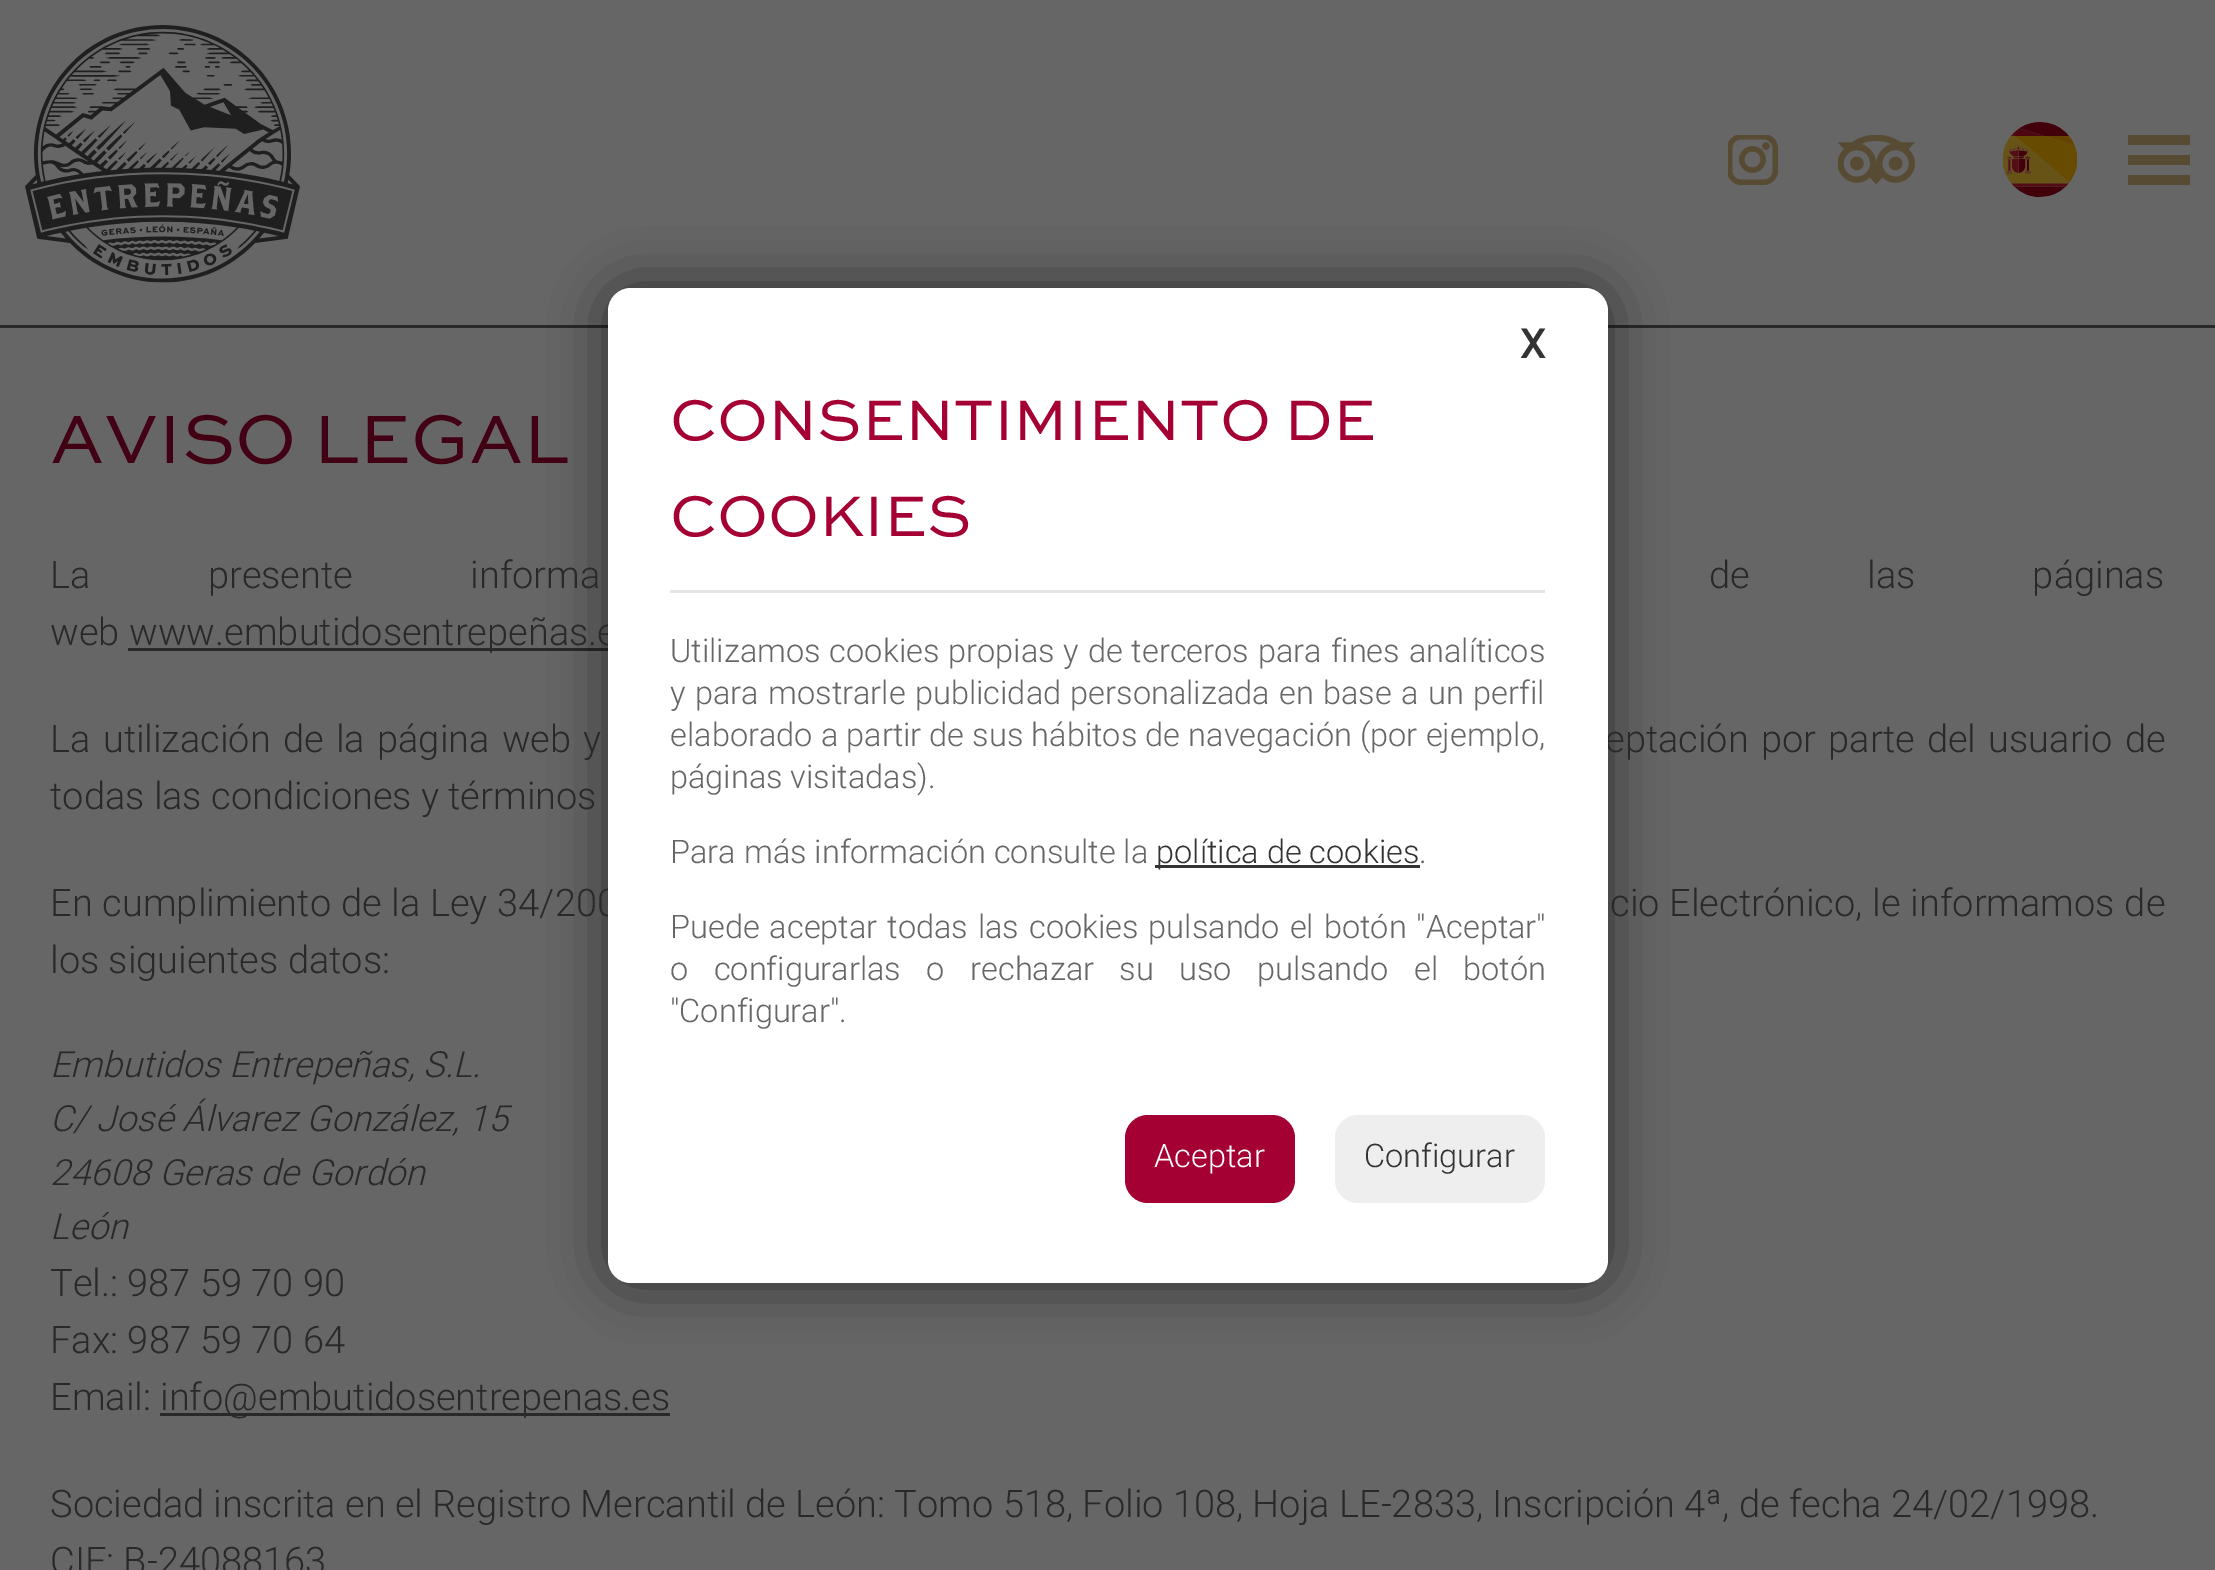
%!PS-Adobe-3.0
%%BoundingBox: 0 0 2215 1570
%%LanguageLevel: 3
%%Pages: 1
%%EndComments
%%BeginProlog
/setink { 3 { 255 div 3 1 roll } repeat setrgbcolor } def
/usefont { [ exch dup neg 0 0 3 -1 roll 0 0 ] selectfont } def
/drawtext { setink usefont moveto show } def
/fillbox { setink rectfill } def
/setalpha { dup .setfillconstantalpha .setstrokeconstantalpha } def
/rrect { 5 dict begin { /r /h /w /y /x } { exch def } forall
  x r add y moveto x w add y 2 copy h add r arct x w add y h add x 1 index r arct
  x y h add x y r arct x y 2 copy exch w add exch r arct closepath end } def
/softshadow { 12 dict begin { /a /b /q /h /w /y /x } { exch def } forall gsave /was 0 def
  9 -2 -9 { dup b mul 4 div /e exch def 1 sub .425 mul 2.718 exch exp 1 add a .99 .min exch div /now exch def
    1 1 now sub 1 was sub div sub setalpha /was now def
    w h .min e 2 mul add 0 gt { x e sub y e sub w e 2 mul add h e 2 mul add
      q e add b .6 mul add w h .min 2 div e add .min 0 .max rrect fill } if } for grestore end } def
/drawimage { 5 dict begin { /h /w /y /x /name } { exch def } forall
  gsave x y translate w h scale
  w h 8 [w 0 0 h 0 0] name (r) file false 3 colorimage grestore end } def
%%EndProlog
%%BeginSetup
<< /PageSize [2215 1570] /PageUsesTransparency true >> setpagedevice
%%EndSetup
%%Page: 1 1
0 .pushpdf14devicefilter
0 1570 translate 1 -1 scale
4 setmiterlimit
0 0 2215 1570 102 102 102 fillbox
0 325 2215 3 41 41 41 fillbox
(assets/img1.rgb) 25 25 275 258 drawimage
(assets/img2.rgb) 1728 135 50 50 drawimage
(assets/img3.rgb) 1838 135 77 50 drawimage
2128 135 62 10 88 75 51 fillbox
2128 175 62 10 88 75 51 fillbox
2128 155 62 10 88 75 51 fillbox
(assets/img4.rgb) 2003 122 75 75 drawimage
128 648 480 3 41 41 41 fillbox
0 0 0 setink
608 288 1000 995 23 27.5 0.54 softshadow
(www.embutidosentrepeñas.e) 129 645 /Roboto-Light 38 41 41 41 drawtext
1605 752 moveto 3 0 32 (eptación por parte del usuario de) widthshow
50 916 moveto 0.5 0 32 (En cumplimiento de la Ley 34/200) widthshow
255 255 255 setink
608 288 1000 995 23 rrect fill
(X) 1520 358 /Roboto-Bold 40 51 51 51 drawtext
670 590 875 3 230 230 230 fillbox
(CONSENTIMIENTO DE) 670 440 /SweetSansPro-Regular 60 165 0 52 drawtext
(COOKIES) 670 536 /SweetSansPro-Regular 60 165 0 52 drawtext
/Roboto-Light 32.5 usefont
102 102 102 setink
670 662 moveto 1 0 32 (Utilizamos cookies propias y de terceros para fines analíticos) widthshow
670 704 moveto 1.5 0 32 (y para mostrarle publicidad personalizada en base a un perfil) widthshow
670 746 moveto 0.25 0 32 (elaborado a partir de sus hábitos de navegación \(por ejemplo,) widthshow
(páginas visitadas\).) 670 788 /Roboto-Light 32.5 102 102 102 drawtext
(Para más información consulte la) 670 863 /Roboto-Light 32.5 102 102 102 drawtext
1155 865 265 3 51 51 51 fillbox
(política de cookies) 1156 863 /Roboto-Light 32.5 51 51 51 drawtext
(.) 1419 863 /Roboto-Light 32.5 102 102 102 drawtext
670 938 moveto 2 0 32 (Puede aceptar todas las cookies pulsando el botón "Aceptar") widthshow
670 980 moveto 17.5 0 32 (o configurarlas o rechazar su uso pulsando el botón) widthshow
("Configurar".) 670 1022 /Roboto-Light 32.5 102 102 102 drawtext
165 0 52 setink
1125 1115 170 88 23 rrect fill
(Aceptar) 1154 1167 /Roboto-Light 32.5 255 255 255 drawtext
238 238 238 setink
1335 1115 210 88 23 rrect fill
(Configurar) 1364 1167 /Roboto-Light 32.5 51 51 51 drawtext
(AVISO LEGAL) 50 463 /SweetSansPro-Regular 72 66 0 21 drawtext
/Roboto-Light 38 usefont
41 41 41 setink
50 588 moveto 108 0 32 (La presente informa) widthshow
1709 588 moveto 108 0 32 (de las páginas) widthshow
(web) 50 645 /Roboto-Light 38 41 41 41 drawtext
50 752 moveto 3 0 32 (La utilización de la página web y) widthshow
(todas las condiciones y términos) 50 809 /Roboto-Light 38 41 41 41 drawtext
1610 916 moveto 0.5 0 32 (cio Electrónico, le informamos de) widthshow
(los siguientes datos:) 50 973 /Roboto-Light 38 41 41 41 drawtext
(Embutidos Entrepeñas, S.L.) 50 1077 /Roboto-LightItalic 36 41 41 41 drawtext
(C/ José Álvarez González, 15) 50 1131 /Roboto-LightItalic 36 41 41 41 drawtext
(24608 Geras de Gordón) 50 1185 /Roboto-LightItalic 36 41 41 41 drawtext
(León) 50 1239 /Roboto-LightItalic 36 41 41 41 drawtext
(Tel.: 987 59 70 90) 50 1296 /Roboto-Light 38 41 41 41 drawtext
(Fax: 987 59 70 64) 50 1353 /Roboto-Light 38 41 41 41 drawtext
(Email:) 50 1410 /Roboto-Light 38 41 41 41 drawtext
160 1413 510 3 41 41 41 fillbox
(info@embutidosentrepenas.es) 160 1410 /Roboto-Light 38 41 41 41 drawtext
(Sociedad inscrita en el Registro Mercantil de León: Tomo 518, Folio 108, Hoja LE-2833, Inscripción 4ª, de fecha 24/02/1998.) 50 1517 /Roboto-Light 38 41 41 41 drawtext
(CIF: B-24088163) 50 1574 /Roboto-Light 38 41 41 41 drawtext
.poppdf14devicefilter showpage
%%EOF
